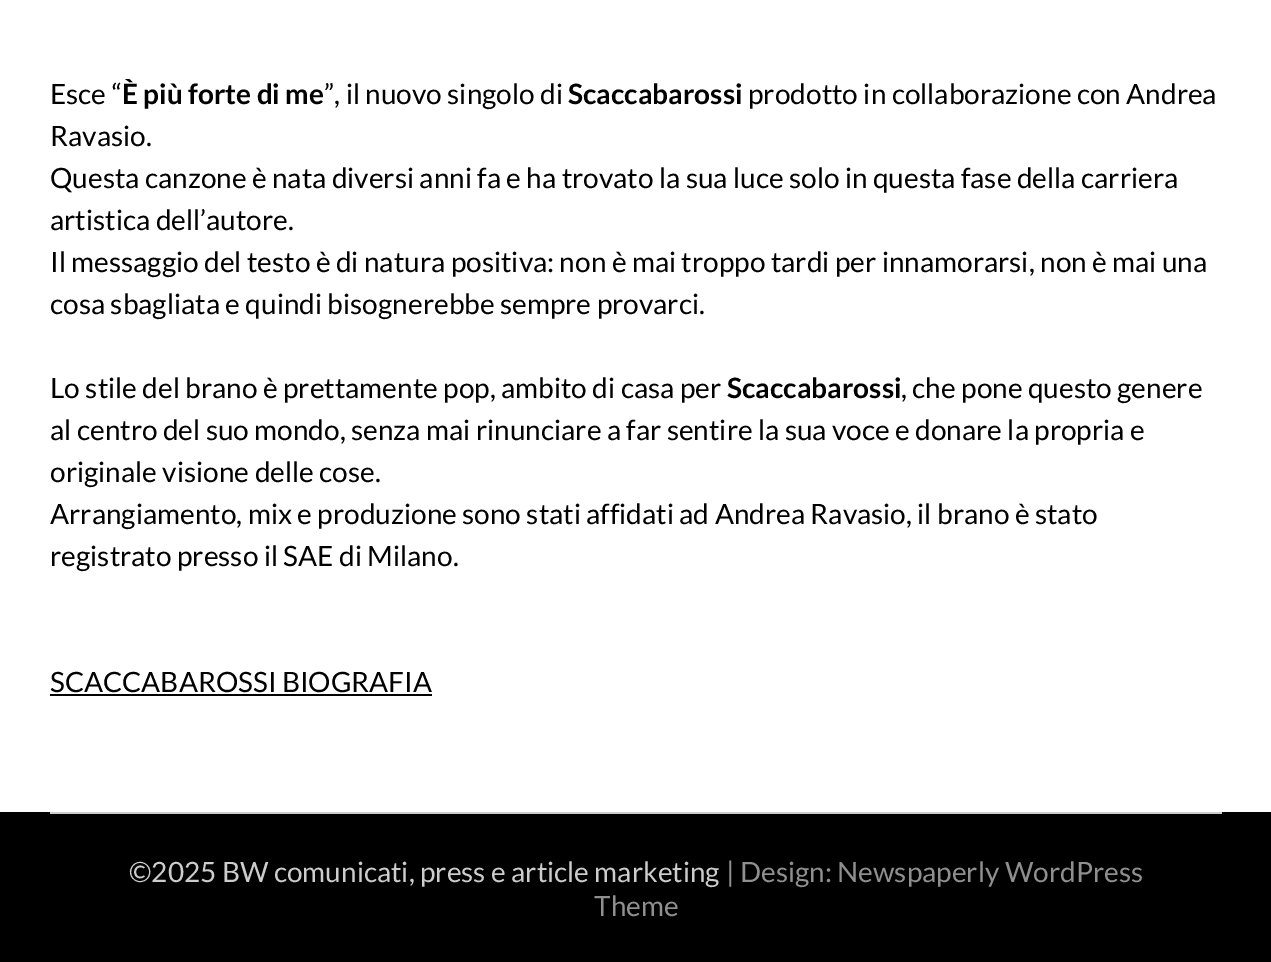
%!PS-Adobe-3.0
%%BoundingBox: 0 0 1271 962
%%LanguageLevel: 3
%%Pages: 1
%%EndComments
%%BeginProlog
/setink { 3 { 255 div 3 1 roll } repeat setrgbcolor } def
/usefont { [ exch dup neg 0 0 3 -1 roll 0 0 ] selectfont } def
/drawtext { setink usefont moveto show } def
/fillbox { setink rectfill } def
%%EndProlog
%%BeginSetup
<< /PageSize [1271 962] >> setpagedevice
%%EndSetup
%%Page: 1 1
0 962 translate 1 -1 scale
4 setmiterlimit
0 0 1271 962 255 255 255 fillbox
(Esce “) 50 104 /Lato-Regular 28 0 0 0 drawtext
(È più forte di me) 122 104 /Lato-Bold 28 0 0 0 drawtext
(”, il nuovo singolo di) 324 104 /Lato-Regular 28 0 0 0 drawtext
(Scaccabarossi) 568 104 /Lato-Bold 28 0 0 0 drawtext
(prodotto in collaborazione con Andrea) 748 104 /Lato-Regular 28 0 0 0 drawtext
(Ravasio.) 50 146 /Lato-Regular 28 0 0 0 drawtext
(Questa canzone è nata diversi anni fa e ha trovato la sua luce solo in questa fase della carriera) 50 188 /Lato-Regular 28 0 0 0 drawtext
(artistica dell’autore.) 50 230 /Lato-Regular 28 0 0 0 drawtext
(Il messaggio del testo è di natura positiva: non è mai troppo tardi per innamorarsi, non è mai una) 50 272 /Lato-Regular 28 0 0 0 drawtext
(cosa sbagliata e quindi bisognerebbe sempre provarci.) 50 314 /Lato-Regular 28 0 0 0 drawtext
(Lo stile del brano è prettamente pop, ambito di casa per) 50 398 /Lato-Regular 28 0 0 0 drawtext
(Scaccabarossi) 727 398 /Lato-Bold 28 0 0 0 drawtext
(, che pone questo genere) 901 398 /Lato-Regular 28 0 0 0 drawtext
(al centro del suo mondo, senza mai rinunciare a far sentire la sua voce e donare la propria e) 50 440 /Lato-Regular 28 0 0 0 drawtext
(originale visione delle cose.) 50 482 /Lato-Regular 28 0 0 0 drawtext
(Arrangiamento, mix e produzione sono stati affidati ad Andrea Ravasio, il brano è stato) 50 524 /Lato-Regular 28 0 0 0 drawtext
(registrato presso il SAE di Milano.) 50 566 /Lato-Regular 28 0 0 0 drawtext
(SCACCABAROSSI BIOGRAFIA) 50 692 /Lato-Regular 28 0 0 0 drawtext
50 694 382 2 0 0 0 fillbox
0 812 1271 150 0 0 0 fillbox
50 812 1172 2 204 204 204 fillbox
(©2025 BW comunicati, press e article marketing) 129 882 /Lato-Regular 28 204 204 204 drawtext
(| Design: Newspaperly WordPress) 726 882 /Lato-Regular 28 143 143 143 drawtext
(Theme) 594 916 /Lato-Regular 28 143 143 143 drawtext
showpage
%%EOF
